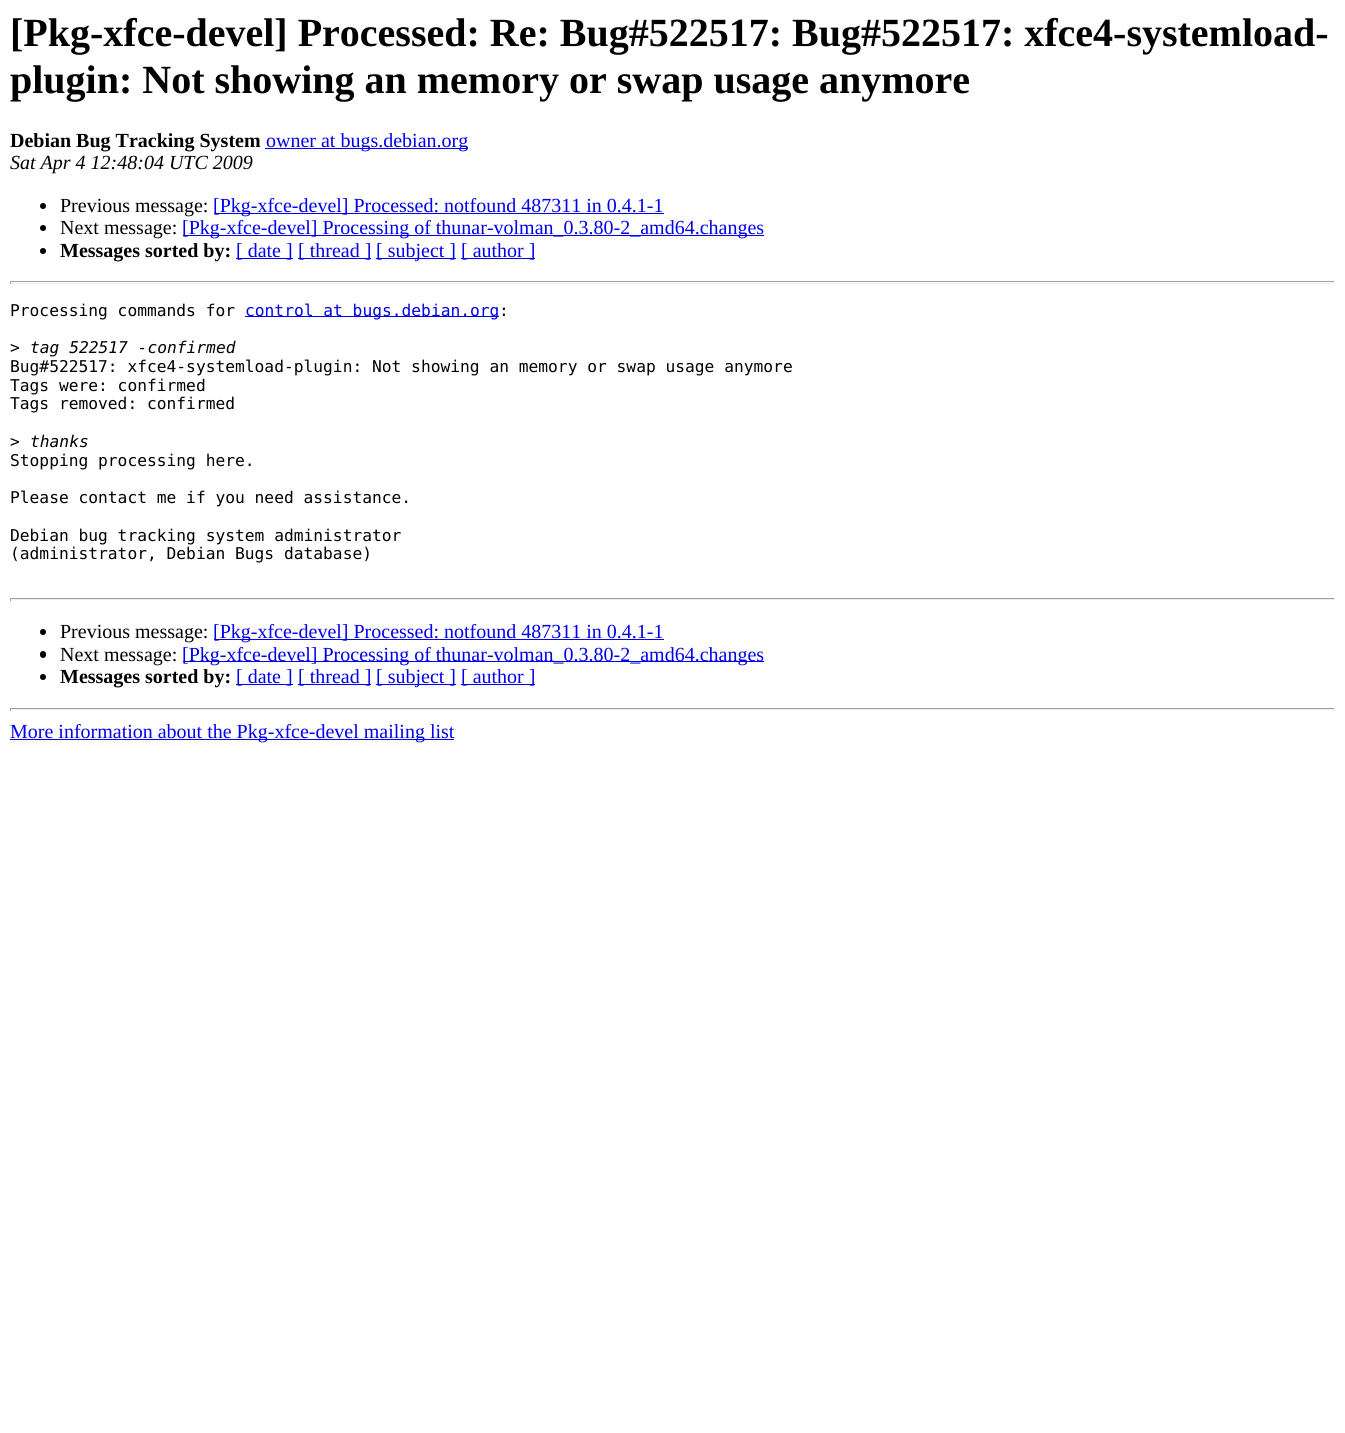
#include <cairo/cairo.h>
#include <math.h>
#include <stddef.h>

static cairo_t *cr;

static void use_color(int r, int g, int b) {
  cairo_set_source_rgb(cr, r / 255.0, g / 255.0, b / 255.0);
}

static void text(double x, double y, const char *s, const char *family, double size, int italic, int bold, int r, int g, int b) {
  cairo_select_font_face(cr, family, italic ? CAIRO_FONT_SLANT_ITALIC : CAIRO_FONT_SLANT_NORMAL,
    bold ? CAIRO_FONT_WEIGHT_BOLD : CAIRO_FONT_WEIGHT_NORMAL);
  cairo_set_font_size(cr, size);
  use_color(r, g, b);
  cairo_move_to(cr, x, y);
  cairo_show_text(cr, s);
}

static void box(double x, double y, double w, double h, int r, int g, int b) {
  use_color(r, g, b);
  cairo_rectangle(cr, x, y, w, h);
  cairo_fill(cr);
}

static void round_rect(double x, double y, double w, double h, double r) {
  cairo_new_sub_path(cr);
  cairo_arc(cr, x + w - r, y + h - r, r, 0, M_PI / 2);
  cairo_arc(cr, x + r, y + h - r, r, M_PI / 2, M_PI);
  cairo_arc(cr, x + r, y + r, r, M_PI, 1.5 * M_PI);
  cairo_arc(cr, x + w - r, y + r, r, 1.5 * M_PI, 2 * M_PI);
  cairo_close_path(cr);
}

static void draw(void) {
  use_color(255, 255, 255);
  cairo_paint(cr);
  box(265, 148, 203, 1, 0, 0, 238);
  use_color(0, 0, 0);
  cairo_arc(cr, 43, 206, 3, 0, 2 * M_PI);
  cairo_fill(cr);
  box(214, 213, 450, 1, 0, 0, 238);
  use_color(0, 0, 0);
  cairo_arc(cr, 43, 228, 3, 0, 2 * M_PI);
  cairo_fill(cr);
  box(183, 235, 581, 1, 0, 0, 238);
  use_color(0, 0, 0);
  cairo_arc(cr, 43, 251, 3, 0, 2 * M_PI);
  cairo_fill(cr);
  box(236, 258, 57, 1, 0, 0, 238);
  box(298, 258, 73, 1, 0, 0, 238);
  box(376, 258, 80, 1, 0, 0, 238);
  box(461, 258, 74, 1, 0, 0, 238);
  box(10, 281, 1325, 1, 159, 159, 159);
  box(1334, 281, 1, 3, 238, 238, 238);
  box(10, 283, 1325, 1, 238, 238, 238);
  box(10, 281, 1, 3, 159, 159, 159);
  box(245, 316, 254, 1, 0, 0, 238);
  box(10, 598, 1325, 1, 159, 159, 159);
  box(1334, 598, 1, 3, 238, 238, 238);
  box(10, 599, 1325, 1, 238, 238, 238);
  box(10, 598, 1, 3, 159, 159, 159);
  use_color(0, 0, 0);
  cairo_arc(cr, 43, 632, 3, 0, 2 * M_PI);
  cairo_fill(cr);
  box(214, 639, 450, 1, 0, 0, 238);
  use_color(0, 0, 0);
  round_rect(40, 651, 6, 7, 3);
  cairo_fill(cr);
  box(183, 661, 581, 1, 0, 0, 238);
  use_color(0, 0, 0);
  cairo_arc(cr, 43, 677, 3, 0, 2 * M_PI);
  cairo_fill(cr);
  box(236, 684, 57, 1, 0, 0, 238);
  box(298, 684, 73, 1, 0, 0, 238);
  box(376, 684, 80, 1, 0, 0, 238);
  box(461, 684, 74, 1, 0, 0, 238);
  box(10, 708, 1325, 1, 159, 159, 159);
  box(1334, 708, 1, 3, 238, 238, 238);
  box(10, 709, 1325, 1, 238, 238, 238);
  box(10, 708, 1, 3, 159, 159, 159);
  box(10, 739, 444, 1, 0, 0, 238);
  text(10, 46, "[Pkg-xfce-devel] Processed: Re: Bug#522517: Bug#522517: xfce4-systemload-", "Liberation Serif", 40, 0, 1, 0, 0, 0);
  text(10, 93, "plugin: Not showing an memory or swap usage anymore", "Liberation Serif", 40, 0, 1, 0, 0, 0);
  text(10, 147, "Debian Bug Tracking System", "Liberation Serif", 20, 0, 1, 0, 0, 0);
  text(266, 147, "owner at bugs.debian.org", "Liberation Serif", 20, 0, 0, 0, 0, 238);
  text(10, 169, "Sat Apr 4 12:48:04 UTC 2009", "Liberation Serif", 20, 1, 0, 0, 0, 0);
  text(60, 212, "Previous message:", "Liberation Serif", 20, 0, 0, 0, 0, 0);
  text(213, 212, "[Pkg-xfce-devel] Processed: notfound 487311 in 0.4.1-1", "Liberation Serif", 20, 0, 0, 0, 0, 238);
  text(60, 234, "Next message:", "Liberation Serif", 20, 0, 0, 0, 0, 0);
  text(182, 234, "[Pkg-xfce-devel] Processing of thunar-volman_0.3.80-2_amd64.changes", "Liberation Serif", 20, 0, 0, 0, 0, 238);
  text(60, 257, "Messages sorted by:", "Liberation Serif", 20, 0, 1, 0, 0, 0);
  text(236, 257, "[ date ]", "Liberation Serif", 20, 0, 0, 0, 0, 238);
  text(298, 257, "[ thread ]", "Liberation Serif", 20, 0, 0, 0, 0, 238);
  text(376, 257, "[ subject ]", "Liberation Serif", 20, 0, 0, 0, 0, 238);
  text(461, 257, "[ author ]", "Liberation Serif", 20, 0, 0, 0, 0, 238);
  text(10, 316, "Processing commands for", "DejaVu Sans Mono", 16.25, 0, 0, 0, 0, 0);
  text(245, 316, "control at bugs.debian.org", "DejaVu Sans Mono", 16.25, 0, 0, 0, 0, 238);
  text(499, 316, ":", "DejaVu Sans Mono", 16.25, 0, 0, 0, 0, 0);
  text(10, 353, ">", "DejaVu Sans Mono", 16.25, 0, 0, 0, 0, 0);
  text(30, 353, "tag 522517 -confirmed", "DejaVu Sans Mono", 16.25, 1, 0, 0, 0, 0);
  text(10, 372, "Bug#522517: xfce4-systemload-plugin: Not showing an memory or swap usage anymore", "DejaVu Sans Mono", 16.25, 0, 0, 0, 0, 0);
  text(10, 391, "Tags were: confirmed", "DejaVu Sans Mono", 16.25, 0, 0, 0, 0, 0);
  text(10, 409, "Tags removed: confirmed", "DejaVu Sans Mono", 16.25, 0, 0, 0, 0, 0);
  text(10, 447, ">", "DejaVu Sans Mono", 16.25, 0, 0, 0, 0, 0);
  text(30, 447, "thanks", "DejaVu Sans Mono", 16.25, 1, 0, 0, 0, 0);
  text(10, 466, "Stopping processing here.", "DejaVu Sans Mono", 16.25, 0, 0, 0, 0, 0);
  text(10, 503, "Please contact me if you need assistance.", "DejaVu Sans Mono", 16.25, 0, 0, 0, 0, 0);
  text(10, 541, "Debian bug tracking system administrator", "DejaVu Sans Mono", 16.25, 0, 0, 0, 0, 0);
  text(10, 559, "(administrator, Debian Bugs database)", "DejaVu Sans Mono", 16.25, 0, 0, 0, 0, 0);
  text(60, 638, "Previous message:", "Liberation Serif", 20, 0, 0, 0, 0, 0);
  text(213, 638, "[Pkg-xfce-devel] Processed: notfound 487311 in 0.4.1-1", "Liberation Serif", 20, 0, 0, 0, 0, 238);
  text(60, 661, "Next message:", "Liberation Serif", 20, 0, 0, 0, 0, 0);
  text(182, 661, "[Pkg-xfce-devel] Processing of thunar-volman_0.3.80-2_amd64.changes", "Liberation Serif", 20, 0, 0, 0, 0, 238);
  text(60, 683, "Messages sorted by:", "Liberation Serif", 20, 0, 1, 0, 0, 0);
  text(236, 683, "[ date ]", "Liberation Serif", 20, 0, 0, 0, 0, 238);
  text(298, 683, "[ thread ]", "Liberation Serif", 20, 0, 0, 0, 0, 238);
  text(376, 683, "[ subject ]", "Liberation Serif", 20, 0, 0, 0, 0, 238);
  text(461, 683, "[ author ]", "Liberation Serif", 20, 0, 0, 0, 0, 238);
  text(10, 738, "More information about the Pkg-xfce-devel mailing list", "Liberation Serif", 20, 0, 0, 0, 0, 238);
}

int main(void) {
  cairo_surface_t *surface = cairo_image_surface_create(CAIRO_FORMAT_RGB24, 1345, 1433);
  cr = cairo_create(surface);
  cairo_font_options_t *options = cairo_font_options_create();
  cairo_font_options_set_hint_metrics(options, CAIRO_HINT_METRICS_OFF);
  cairo_font_options_set_hint_style(options, CAIRO_HINT_STYLE_NONE);
  cairo_set_font_options(cr, options);
  cairo_set_miter_limit(cr, 4);
  draw();
  cairo_surface_write_to_png(surface, "out.png");
  cairo_font_options_destroy(options);
  cairo_destroy(cr);
  cairo_surface_destroy(surface);
  return 0;
}
